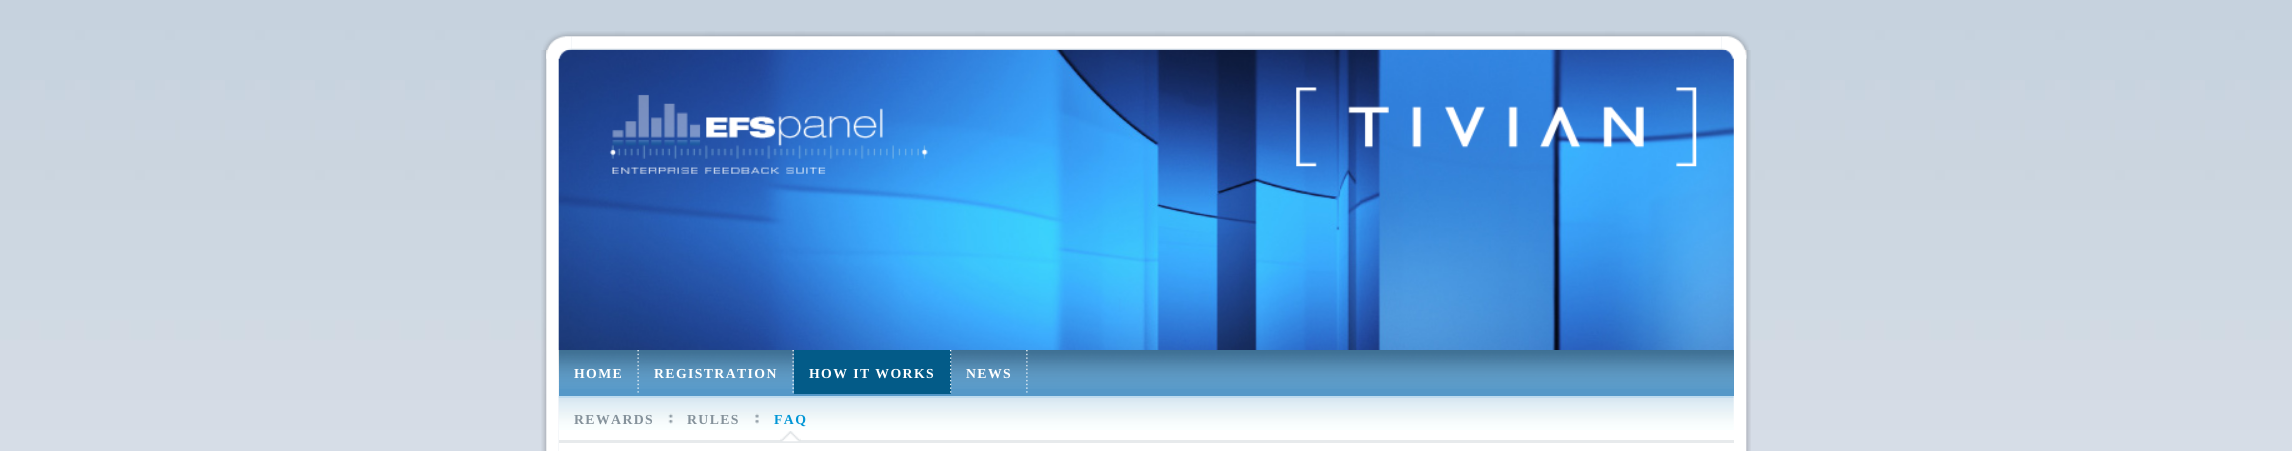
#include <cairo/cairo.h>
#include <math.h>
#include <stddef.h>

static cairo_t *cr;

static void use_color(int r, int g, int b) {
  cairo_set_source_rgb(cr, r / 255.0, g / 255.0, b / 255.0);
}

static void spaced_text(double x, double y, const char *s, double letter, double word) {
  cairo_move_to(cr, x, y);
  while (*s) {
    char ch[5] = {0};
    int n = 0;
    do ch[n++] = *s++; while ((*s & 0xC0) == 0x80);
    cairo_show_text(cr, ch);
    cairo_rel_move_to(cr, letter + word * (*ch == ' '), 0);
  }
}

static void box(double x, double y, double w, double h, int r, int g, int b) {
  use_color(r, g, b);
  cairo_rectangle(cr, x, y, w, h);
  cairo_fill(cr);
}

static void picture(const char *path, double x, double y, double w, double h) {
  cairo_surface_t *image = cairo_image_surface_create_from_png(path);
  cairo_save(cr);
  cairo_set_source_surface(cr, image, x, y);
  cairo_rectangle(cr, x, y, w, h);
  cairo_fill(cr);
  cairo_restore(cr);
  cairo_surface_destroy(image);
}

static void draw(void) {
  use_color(255, 255, 255);
  cairo_paint(cr);
  picture("img_01.png", 0, 0, 2292, 451);
  picture("img_03.png", 571, 31, 1151, 18);
  picture("img_05.png", 541, 50, 18, 401);
  picture("img_06.png", 1733, 50, 18, 401);
  picture("img_07.png", 558, 50, 1176, 300);
  picture("img_02.png", 543, 31, 29, 28);
  picture("img_04.png", 1721, 31, 28, 28);
  picture("img_08.png", 609, 94, 319, 80);
  picture("img_09.png", 1296, 87, 401, 80);
  box(559, 396, 1175, 44, 255, 255, 255);
  box(559, 350, 1175, 46, 85, 152, 200);
  picture("img_10.png", 558, 350, 1176, 39);
  picture("img_11.png", 637, 350, 2, 43);
  picture("img_12.png", 792, 350, 2, 43);
  box(794, 350, 157, 44, 3, 91, 136);
  picture("img_13.png", 950, 350, 2, 43);
  picture("img_14.png", 1026, 350, 2, 43);
  picture("img_15.png", 558, 396, 1176, 34);
  box(559, 440, 1175, 3, 231, 234, 236);
  picture("img_16.png", 668, 413, 5, 11);
  picture("img_17.png", 755, 413, 4, 11);
  picture("img_18.png", 780, 431, 21, 11);
  box(559, 443, 1175, 8, 255, 255, 255);
  cairo_select_font_face(cr, "Liberation Serif", CAIRO_FONT_SLANT_NORMAL, CAIRO_FONT_WEIGHT_BOLD);
  cairo_set_font_size(cr, 13.75);
  spaced_text(574, 378, "HOME", 1.4, 0);
  spaced_text(654, 378, "REGISTRATION", 1.4, 0);
  spaced_text(809, 378, "HOW IT WORKS", 1.4, 0);
  spaced_text(966, 378, "NEWS", 1.4, 0);
  use_color(133, 146, 155);
  spaced_text(574, 424, "REWARDS", 1.4, 0);
  spaced_text(687, 424, "RULES", 1.4, 0);
  use_color(0, 150, 214);
  spaced_text(774, 424, "FAQ", 1.4, 0);
}

int main(void) {
  cairo_surface_t *surface = cairo_image_surface_create(CAIRO_FORMAT_RGB24, 2292, 451);
  cr = cairo_create(surface);
  cairo_font_options_t *options = cairo_font_options_create();
  cairo_font_options_set_hint_metrics(options, CAIRO_HINT_METRICS_OFF);
  cairo_font_options_set_hint_style(options, CAIRO_HINT_STYLE_NONE);
  cairo_set_font_options(cr, options);
  cairo_set_miter_limit(cr, 4);
  draw();
  cairo_surface_write_to_png(surface, "out.png");
  cairo_font_options_destroy(options);
  cairo_destroy(cr);
  cairo_surface_destroy(surface);
  return 0;
}
